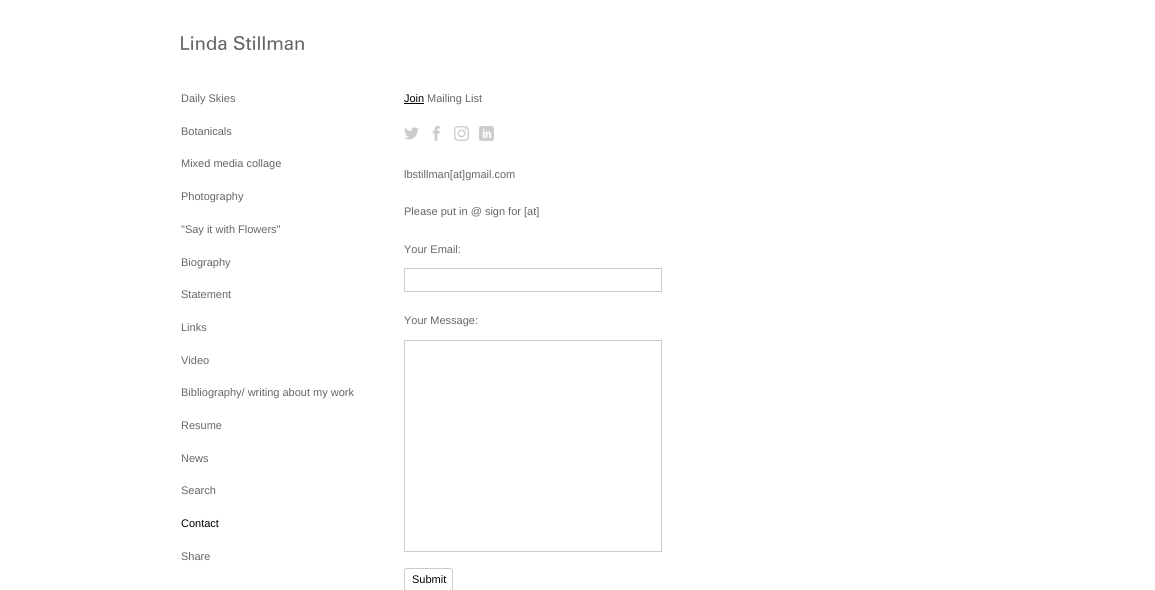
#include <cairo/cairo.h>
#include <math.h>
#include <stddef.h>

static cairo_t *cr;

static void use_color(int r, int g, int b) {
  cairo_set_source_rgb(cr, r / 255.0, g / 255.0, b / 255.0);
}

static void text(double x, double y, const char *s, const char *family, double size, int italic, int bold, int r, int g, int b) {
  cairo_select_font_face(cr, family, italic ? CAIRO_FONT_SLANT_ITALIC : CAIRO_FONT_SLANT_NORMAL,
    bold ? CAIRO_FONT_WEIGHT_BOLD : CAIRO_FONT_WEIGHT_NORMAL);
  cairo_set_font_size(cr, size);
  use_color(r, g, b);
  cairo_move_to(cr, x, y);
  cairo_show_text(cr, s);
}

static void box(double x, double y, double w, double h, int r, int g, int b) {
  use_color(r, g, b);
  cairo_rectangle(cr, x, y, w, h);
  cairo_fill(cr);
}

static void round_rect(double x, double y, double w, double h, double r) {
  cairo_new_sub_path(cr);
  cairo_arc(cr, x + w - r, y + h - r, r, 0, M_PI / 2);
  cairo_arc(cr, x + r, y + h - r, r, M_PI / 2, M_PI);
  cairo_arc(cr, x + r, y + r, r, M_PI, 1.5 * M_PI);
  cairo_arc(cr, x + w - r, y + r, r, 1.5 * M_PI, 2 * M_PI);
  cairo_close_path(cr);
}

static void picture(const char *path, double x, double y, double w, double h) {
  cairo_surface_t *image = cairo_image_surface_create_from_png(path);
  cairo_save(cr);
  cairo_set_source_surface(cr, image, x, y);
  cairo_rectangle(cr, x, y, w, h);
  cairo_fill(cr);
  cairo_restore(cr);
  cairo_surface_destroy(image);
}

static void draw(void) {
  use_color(255, 255, 255);
  cairo_paint(cr);
  picture("img_01.png", 181, 36, 123, 14);
  box(404, 103, 20, 1, 0, 0, 0);
  picture("img_02.png", 404, 127, 15, 13);
  picture("img_03.png", 432, 126, 8, 15);
  picture("img_04.png", 454, 126, 15, 15);
  picture("img_05.png", 479, 126, 15, 15);
  cairo_rectangle(cr, 404.5, 268.5, 257, 23);
  use_color(204, 204, 204);
  cairo_set_line_width(cr, 1);
  cairo_stroke(cr);
  cairo_rectangle(cr, 404.5, 340.5, 257, 211);
  cairo_stroke(cr);
  round_rect(404.5, 568.5, 48, 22, 2.5);
  cairo_stroke(cr);
  text(181, 102, "Daily Skies", "Liberation Sans", 11, 0, 0, 102, 102, 102);
  text(181, 135, "Botanicals", "Liberation Sans", 11, 0, 0, 102, 102, 102);
  text(181, 167, "Mixed media collage", "Liberation Sans", 11, 0, 0, 102, 102, 102);
  text(181, 200, "Photography", "Liberation Sans", 11, 0, 0, 102, 102, 102);
  text(181, 233, "\"Say it with Flowers\"", "Liberation Sans", 11, 0, 0, 102, 102, 102);
  text(181, 266, "Biography", "Liberation Sans", 11, 0, 0, 102, 102, 102);
  text(181, 298, "Statement", "Liberation Sans", 11, 0, 0, 102, 102, 102);
  text(181, 331, "Links", "Liberation Sans", 11, 0, 0, 102, 102, 102);
  text(181, 364, "Video", "Liberation Sans", 11, 0, 0, 102, 102, 102);
  text(181, 396, "Bibliography/ writing about my work", "Liberation Sans", 11, 0, 0, 102, 102, 102);
  text(181, 429, "Resume", "Liberation Sans", 11, 0, 0, 102, 102, 102);
  text(181, 462, "News", "Liberation Sans", 11, 0, 0, 102, 102, 102);
  text(181, 494, "Search", "Liberation Sans", 11, 0, 0, 102, 102, 102);
  text(181, 527, "Contact", "Liberation Sans", 11, 0, 0, 0, 0, 0);
  text(181, 560, "Share", "Liberation Sans", 11, 0, 0, 102, 102, 102);
  text(404, 102, "Join", "Liberation Sans", 11, 0, 0, 0, 0, 0);
  text(427, 102, "Mailing List", "Liberation Sans", 11, 0, 0, 102, 102, 102);
  text(404, 178, "lbstillman[at]gmail.com", "Liberation Sans", 11, 0, 0, 102, 102, 102);
  text(404, 215, "Please put in @ sign for [at]", "Liberation Sans", 11, 0, 0, 102, 102, 102);
  text(404, 253, "Your Email:", "Liberation Sans", 11, 0, 0, 102, 102, 102);
  text(404, 324, "Your Message:", "Liberation Sans", 11, 0, 0, 102, 102, 102);
  text(412, 583, "Submit", "Liberation Sans", 11, 0, 0, 0, 0, 0);
}

int main(void) {
  cairo_surface_t *surface = cairo_image_surface_create(CAIRO_FORMAT_RGB24, 1155, 590);
  cr = cairo_create(surface);
  cairo_font_options_t *options = cairo_font_options_create();
  cairo_font_options_set_hint_metrics(options, CAIRO_HINT_METRICS_OFF);
  cairo_font_options_set_hint_style(options, CAIRO_HINT_STYLE_NONE);
  cairo_set_font_options(cr, options);
  cairo_set_miter_limit(cr, 4);
  draw();
  cairo_surface_write_to_png(surface, "out.png");
  cairo_font_options_destroy(options);
  cairo_destroy(cr);
  cairo_surface_destroy(surface);
  return 0;
}
